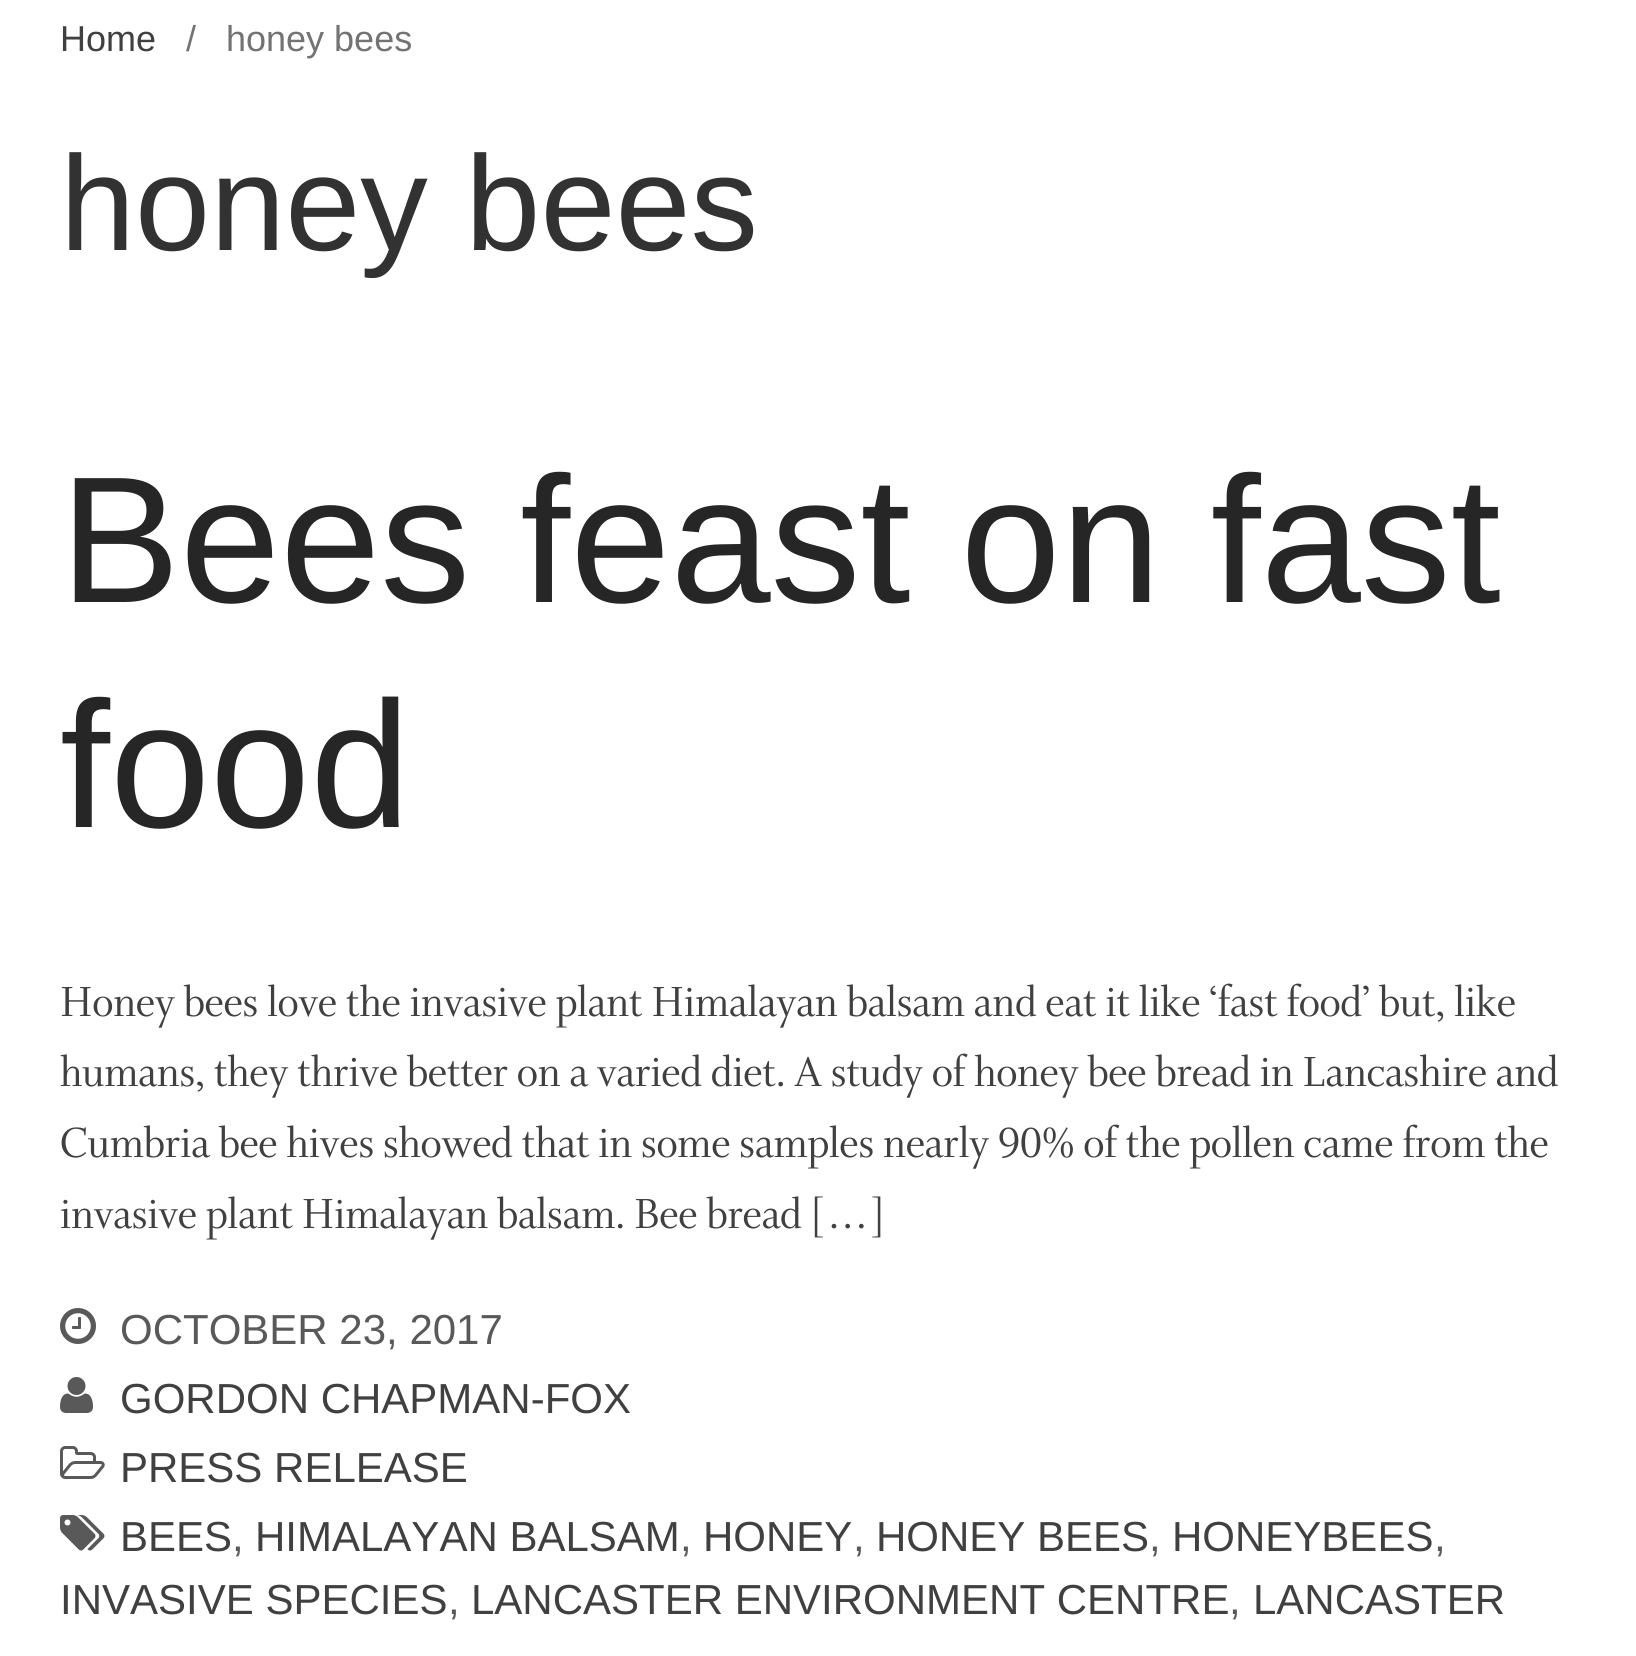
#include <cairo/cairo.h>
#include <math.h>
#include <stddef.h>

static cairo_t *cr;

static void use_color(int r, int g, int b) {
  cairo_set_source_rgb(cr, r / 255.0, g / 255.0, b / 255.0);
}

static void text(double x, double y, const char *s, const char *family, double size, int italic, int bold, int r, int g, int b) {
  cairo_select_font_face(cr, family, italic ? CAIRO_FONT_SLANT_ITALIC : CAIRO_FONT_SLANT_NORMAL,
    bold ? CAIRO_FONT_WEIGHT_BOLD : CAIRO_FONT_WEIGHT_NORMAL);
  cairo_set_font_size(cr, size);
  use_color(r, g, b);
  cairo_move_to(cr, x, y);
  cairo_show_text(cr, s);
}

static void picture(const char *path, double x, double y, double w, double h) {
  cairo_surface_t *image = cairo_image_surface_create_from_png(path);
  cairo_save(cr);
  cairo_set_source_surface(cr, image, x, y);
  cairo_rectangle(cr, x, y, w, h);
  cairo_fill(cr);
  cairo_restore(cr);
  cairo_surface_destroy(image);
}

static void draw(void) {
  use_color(255, 255, 255);
  cairo_paint(cr);
  picture("img_01.png", 60, 1308, 36, 36);
  picture("img_02.png", 60, 1377, 33, 36);
  picture("img_03.png", 60, 1446, 45, 33);
  picture("img_04.png", 60, 1515, 45, 36);
  text(60, 51, "Home", "Liberation Sans", 36, 0, 0, 64, 64, 64);
  text(186, 51, "/", "Liberation Sans", 36, 0, 0, 115, 115, 115);
  text(226, 51, "honey bees", "Liberation Sans", 36, 0, 0, 115, 115, 115);
  text(60, 250, "honey bees", "Liberation Sans", 135, 0, 0, 50, 50, 50);
  text(60, 602, "Bees feast on fast", "Liberation Sans", 180, 0, 0, 38, 38, 38);
  text(60, 827, "food", "Liberation Sans", 180, 0, 0, 38, 38, 38);
  text(60, 1016, "Honey bees love the invasive plant Himalayan balsam and eat it like ‘fast food’ but, like", "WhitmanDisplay", 45, 0, 0, 64, 64, 64);
  text(60, 1086, "humans, they thrive better on a varied diet. A study of honey bee bread in Lancashire and", "WhitmanDisplay", 45, 0, 0, 64, 64, 64);
  text(60, 1157, "Cumbria bee hives showed that in some samples nearly 90% of the pollen came from the", "WhitmanDisplay", 45, 0, 0, 64, 64, 64);
  text(60, 1228, "invasive plant Himalayan balsam. Bee bread […]", "WhitmanDisplay", 45, 0, 0, 64, 64, 64);
  text(120, 1344, "OCTOBER 23, 2017", "Liberation Sans", 42, 0, 0, 89, 89, 89);
  text(120, 1413, "GORDON CHAPMAN-FOX", "Liberation Sans", 42, 0, 0, 64, 64, 64);
  text(120, 1482, "PRESS RELEASE", "Liberation Sans", 42, 0, 0, 64, 64, 64);
  text(120, 1551, "BEES", "Liberation Sans", 42, 0, 0, 64, 64, 64);
  text(232, 1551, ",", "Liberation Sans", 42, 0, 0, 89, 89, 89);
  text(255, 1551, "HIMALAYAN BALSAM", "Liberation Sans", 42, 0, 0, 64, 64, 64);
  text(680, 1551, ",", "Liberation Sans", 42, 0, 0, 89, 89, 89);
  text(703, 1551, "HONEY", "Liberation Sans", 42, 0, 0, 64, 64, 64);
  text(853, 1551, ",", "Liberation Sans", 42, 0, 0, 89, 89, 89);
  text(876, 1551, "HONEY BEES", "Liberation Sans", 42, 0, 0, 64, 64, 64);
  text(1149, 1551, ",", "Liberation Sans", 42, 0, 0, 89, 89, 89);
  text(1172, 1551, "HONEYBEES", "Liberation Sans", 42, 0, 0, 64, 64, 64);
  text(1434, 1551, ",", "Liberation Sans", 42, 0, 0, 89, 89, 89);
  text(60, 1614, "INVASIVE SPECIES", "Liberation Sans", 42, 0, 0, 64, 64, 64);
  text(448, 1614, ",", "Liberation Sans", 42, 0, 0, 89, 89, 89);
  text(471, 1614, "LANCASTER ENVIRONMENT CENTRE", "Liberation Sans", 42, 0, 0, 64, 64, 64);
  text(1229, 1614, ",", "Liberation Sans", 42, 0, 0, 89, 89, 89);
  text(1253, 1614, "LANCASTER", "Liberation Sans", 42, 0, 0, 64, 64, 64);
}

int main(void) {
  cairo_surface_t *surface = cairo_image_surface_create(CAIRO_FORMAT_RGB24, 1636, 1656);
  cr = cairo_create(surface);
  cairo_font_options_t *options = cairo_font_options_create();
  cairo_font_options_set_hint_metrics(options, CAIRO_HINT_METRICS_OFF);
  cairo_font_options_set_hint_style(options, CAIRO_HINT_STYLE_NONE);
  cairo_set_font_options(cr, options);
  cairo_set_miter_limit(cr, 4);
  draw();
  cairo_surface_write_to_png(surface, "out.png");
  cairo_font_options_destroy(options);
  cairo_destroy(cr);
  cairo_surface_destroy(surface);
  return 0;
}
